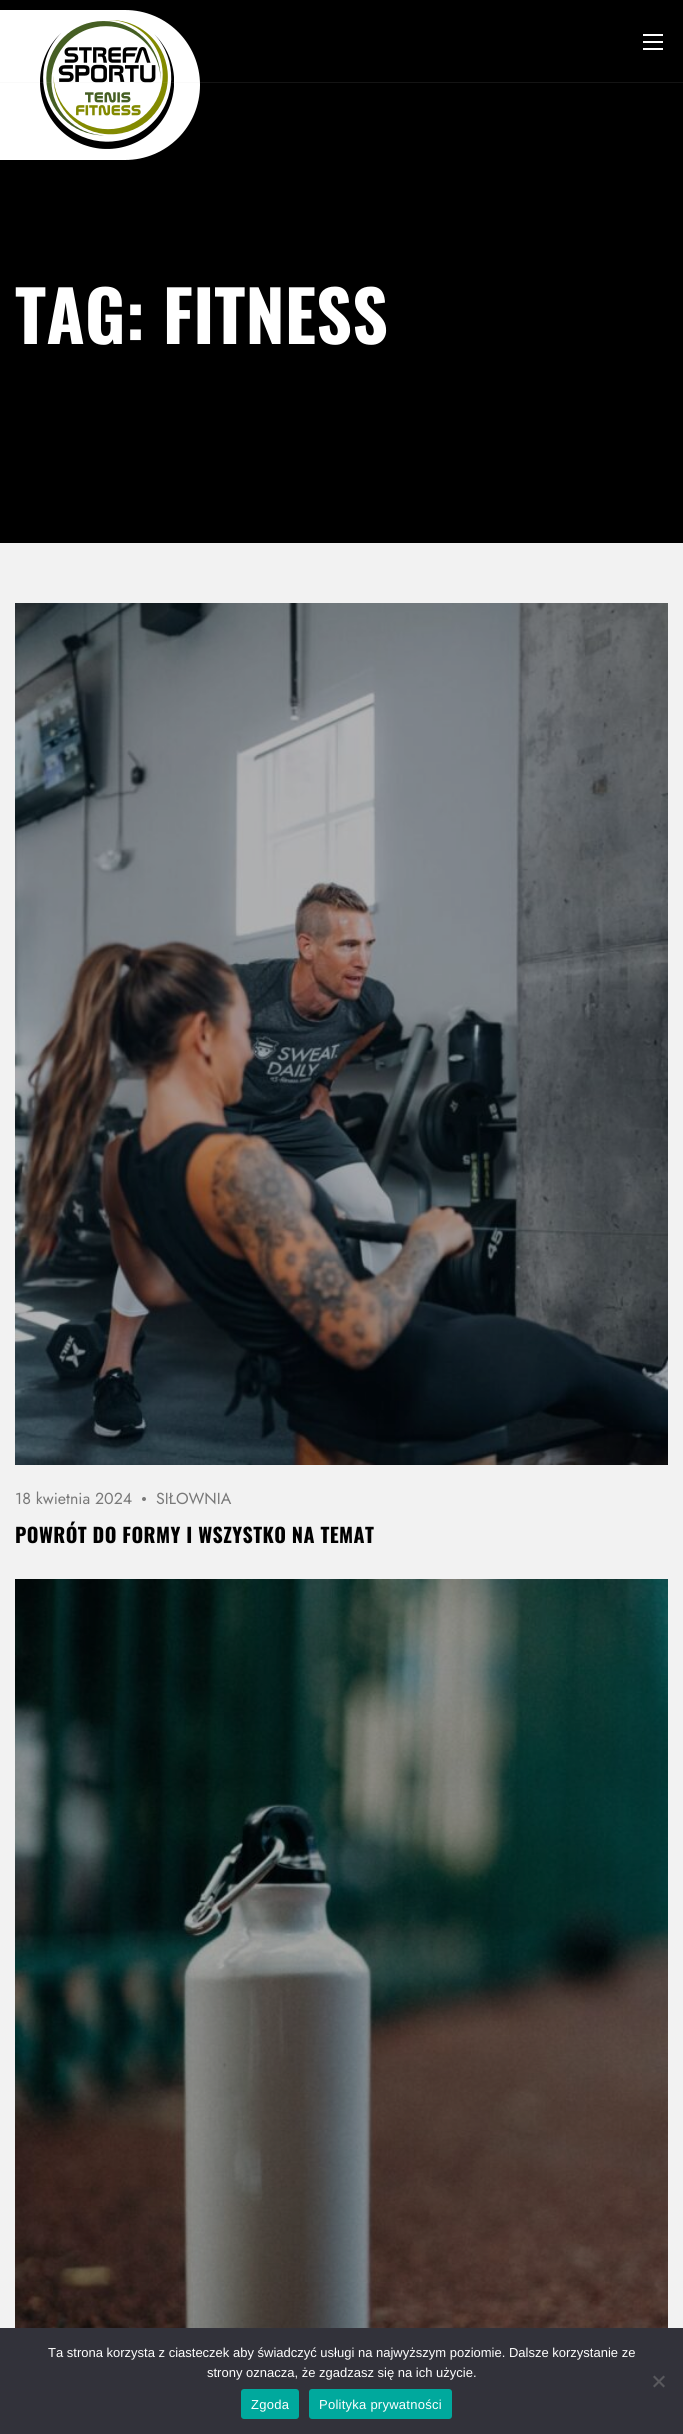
#include <cairo/cairo.h>
#include <math.h>
#include <stddef.h>

static cairo_t *cr;

static void use_color(int r, int g, int b) {
  cairo_set_source_rgb(cr, r / 255.0, g / 255.0, b / 255.0);
}

static void text(double x, double y, const char *s, const char *family, double size, int italic, int bold, int r, int g, int b) {
  cairo_select_font_face(cr, family, italic ? CAIRO_FONT_SLANT_ITALIC : CAIRO_FONT_SLANT_NORMAL,
    bold ? CAIRO_FONT_WEIGHT_BOLD : CAIRO_FONT_WEIGHT_NORMAL);
  cairo_set_font_size(cr, size);
  use_color(r, g, b);
  cairo_move_to(cr, x, y);
  cairo_show_text(cr, s);
}

static void spaced_text(double x, double y, const char *s, double letter, double word) {
  cairo_move_to(cr, x, y);
  while (*s) {
    char ch[5] = {0};
    int n = 0;
    do ch[n++] = *s++; while ((*s & 0xC0) == 0x80);
    cairo_show_text(cr, ch);
    cairo_rel_move_to(cr, letter + word * (*ch == ' '), 0);
  }
}

static void box(double x, double y, double w, double h, int r, int g, int b) {
  use_color(r, g, b);
  cairo_rectangle(cr, x, y, w, h);
  cairo_fill(cr);
}

static void round_rect(double x, double y, double w, double h, double r) {
  cairo_new_sub_path(cr);
  cairo_arc(cr, x + w - r, y + h - r, r, 0, M_PI / 2);
  cairo_arc(cr, x + r, y + h - r, r, M_PI / 2, M_PI);
  cairo_arc(cr, x + r, y + r, r, M_PI, 1.5 * M_PI);
  cairo_arc(cr, x + w - r, y + r, r, 1.5 * M_PI, 2 * M_PI);
  cairo_close_path(cr);
}

static void picture(const char *path, double x, double y, double w, double h) {
  cairo_surface_t *image = cairo_image_surface_create_from_png(path);
  cairo_save(cr);
  cairo_set_source_surface(cr, image, x, y);
  cairo_rectangle(cr, x, y, w, h);
  cairo_fill(cr);
  cairo_restore(cr);
  cairo_surface_destroy(image);
}

static void draw(void) {
  use_color(242, 242, 242);
  cairo_paint(cr);
  box(0, 0, 683, 543, 0, 0, 0);
  use_color(255, 255, 255);
  cairo_new_path(cr);
  cairo_move_to(cr, 0, 10);
  cairo_line_to(cr, 125, 10);
  cairo_curve_to(cr, 166.5, 10, 200, 43.5, 200, 85);
  cairo_curve_to(cr, 200, 126.5, 166.5, 160, 125, 160);
  cairo_line_to(cr, 0, 160);
  cairo_close_path(cr);
  cairo_fill(cr);
  picture("img_01.png", 40, 20, 134, 129);
  box(643, 48, 20, 2, 255, 255, 255);
  box(643, 34, 20, 2, 255, 255, 255);
  box(643, 41, 20, 2, 255, 255, 255);
  cairo_set_source_rgba(cr, 0.8, 0.8, 0.8, 0.1);
  cairo_rectangle(cr, 0, 82, 683, 1);
  cairo_fill(cr);
  picture("img_02.png", 15, 603, 653, 862);
  use_color(121, 121, 121);
  cairo_arc(cr, 144, 1499, 2, 0, 2 * M_PI);
  cairo_fill(cr);
  picture("img_03.png", 15, 1579, 653, 749);
  box(0, 2328, 683, 106, 50, 50, 58);
  use_color(89, 89, 93);
  cairo_new_path(cr);
  cairo_move_to(cr, 663.5, 2375.5);
  cairo_line_to(cr, 665, 2377);
  cairo_line_to(cr, 654.5, 2387.5);
  cairo_line_to(cr, 653, 2386);
  cairo_close_path(cr);
  cairo_fill(cr);
  cairo_new_path(cr);
  cairo_move_to(cr, 653, 2377);
  cairo_line_to(cr, 654.5, 2375.5);
  cairo_line_to(cr, 665, 2386);
  cairo_line_to(cr, 663.5, 2387.5);
  cairo_close_path(cr);
  cairo_fill(cr);
  use_color(0, 169, 157);
  round_rect(241, 2389, 58, 30, 3);
  cairo_fill(cr);
  round_rect(309, 2389, 143, 30, 3);
  cairo_fill(cr);
  text(15, 344, "TAG: FITNESS", "Oswald", 70, 0, 1, 255, 255, 255);
  text(15, 1504, "18 kwietnia 2024", "Jost", 16, 0, 0, 121, 121, 121);
  text(156, 1504, "SIŁOWNIA", "Jost", 16, 0, 0, 121, 121, 121);
  cairo_select_font_face(cr, "Oswald", CAIRO_FONT_SLANT_NORMAL, CAIRO_FONT_WEIGHT_BOLD);
  cairo_set_font_size(cr, 20);
  use_color(0, 0, 0);
  spaced_text(15, 1543, "POWRÓT DO FORMY I WSZYSTKO NA TEMAT", 0.4, 0);
  text(48, 2357, "Ta strona korzysta z ciasteczek aby świadczyć usługi na najwyższym poziomie. Dalsze korzystanie ze", "Liberation Sans", 13, 0, 0, 255, 255, 255);
  text(207, 2377, "strony oznacza, że zgadzasz się na ich użycie.", "Liberation Sans", 13, 0, 0, 255, 255, 255);
  spaced_text(251, 2409, "Zgoda", 0.25, 0);
  spaced_text(319, 2409, "Polityka prywatności", 0.25, 0);
}

int main(void) {
  cairo_surface_t *surface = cairo_image_surface_create(CAIRO_FORMAT_RGB24, 683, 2434);
  cr = cairo_create(surface);
  cairo_font_options_t *options = cairo_font_options_create();
  cairo_font_options_set_hint_metrics(options, CAIRO_HINT_METRICS_OFF);
  cairo_font_options_set_hint_style(options, CAIRO_HINT_STYLE_NONE);
  cairo_set_font_options(cr, options);
  cairo_set_miter_limit(cr, 4);
  draw();
  cairo_surface_write_to_png(surface, "out.png");
  cairo_font_options_destroy(options);
  cairo_destroy(cr);
  cairo_surface_destroy(surface);
  return 0;
}
